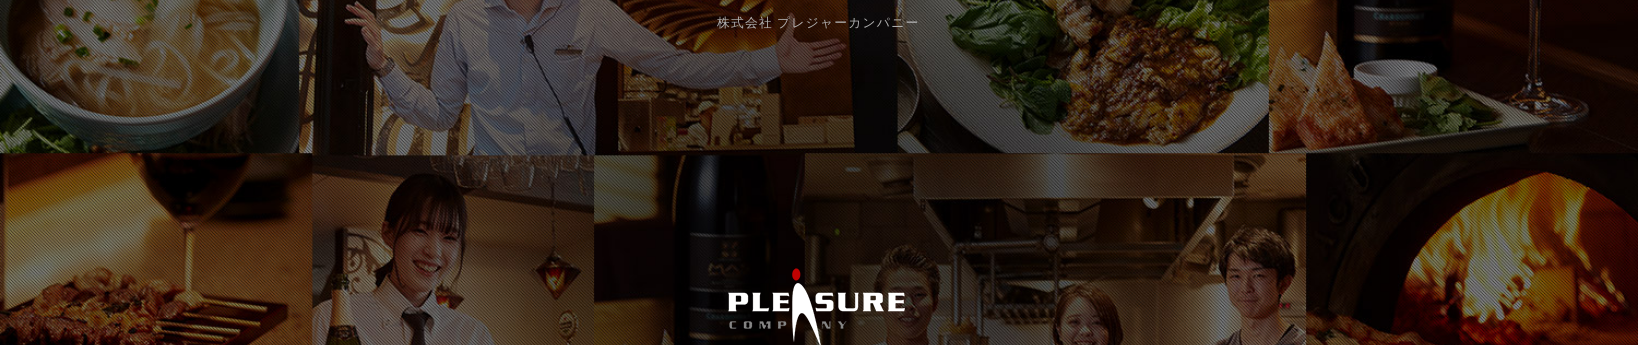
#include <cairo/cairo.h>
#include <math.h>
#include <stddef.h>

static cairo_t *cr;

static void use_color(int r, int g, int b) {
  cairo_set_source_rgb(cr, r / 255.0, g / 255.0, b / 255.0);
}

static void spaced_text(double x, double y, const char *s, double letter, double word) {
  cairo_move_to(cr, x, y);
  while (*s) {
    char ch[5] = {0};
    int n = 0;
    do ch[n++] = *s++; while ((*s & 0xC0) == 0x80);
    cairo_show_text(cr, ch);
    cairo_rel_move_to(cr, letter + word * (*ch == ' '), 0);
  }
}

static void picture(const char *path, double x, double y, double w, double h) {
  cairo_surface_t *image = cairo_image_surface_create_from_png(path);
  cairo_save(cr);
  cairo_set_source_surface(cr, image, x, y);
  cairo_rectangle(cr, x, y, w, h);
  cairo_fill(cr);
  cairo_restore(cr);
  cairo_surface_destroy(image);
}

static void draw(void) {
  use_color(255, 255, 255);
  cairo_paint(cr);
  picture("img_01.png", 0, 0, 1638, 345);
  picture("img_02.png", 728, 268, 177, 77);
  cairo_select_font_face(cr, "WenQuanYi Zen Hei Medium", CAIRO_FONT_SLANT_NORMAL, CAIRO_FONT_WEIGHT_NORMAL);
  cairo_set_font_size(cr, 12.75);
  use_color(175, 175, 175);
  spaced_text(717, 27, "株式会社 プレジャーカンパニー", 1.25, -1);
}

int main(void) {
  cairo_surface_t *surface = cairo_image_surface_create(CAIRO_FORMAT_RGB24, 1638, 345);
  cr = cairo_create(surface);
  cairo_font_options_t *options = cairo_font_options_create();
  cairo_font_options_set_hint_metrics(options, CAIRO_HINT_METRICS_OFF);
  cairo_font_options_set_hint_style(options, CAIRO_HINT_STYLE_NONE);
  cairo_set_font_options(cr, options);
  cairo_set_miter_limit(cr, 4);
  draw();
  cairo_surface_write_to_png(surface, "out.png");
  cairo_font_options_destroy(options);
  cairo_destroy(cr);
  cairo_surface_destroy(surface);
  return 0;
}
